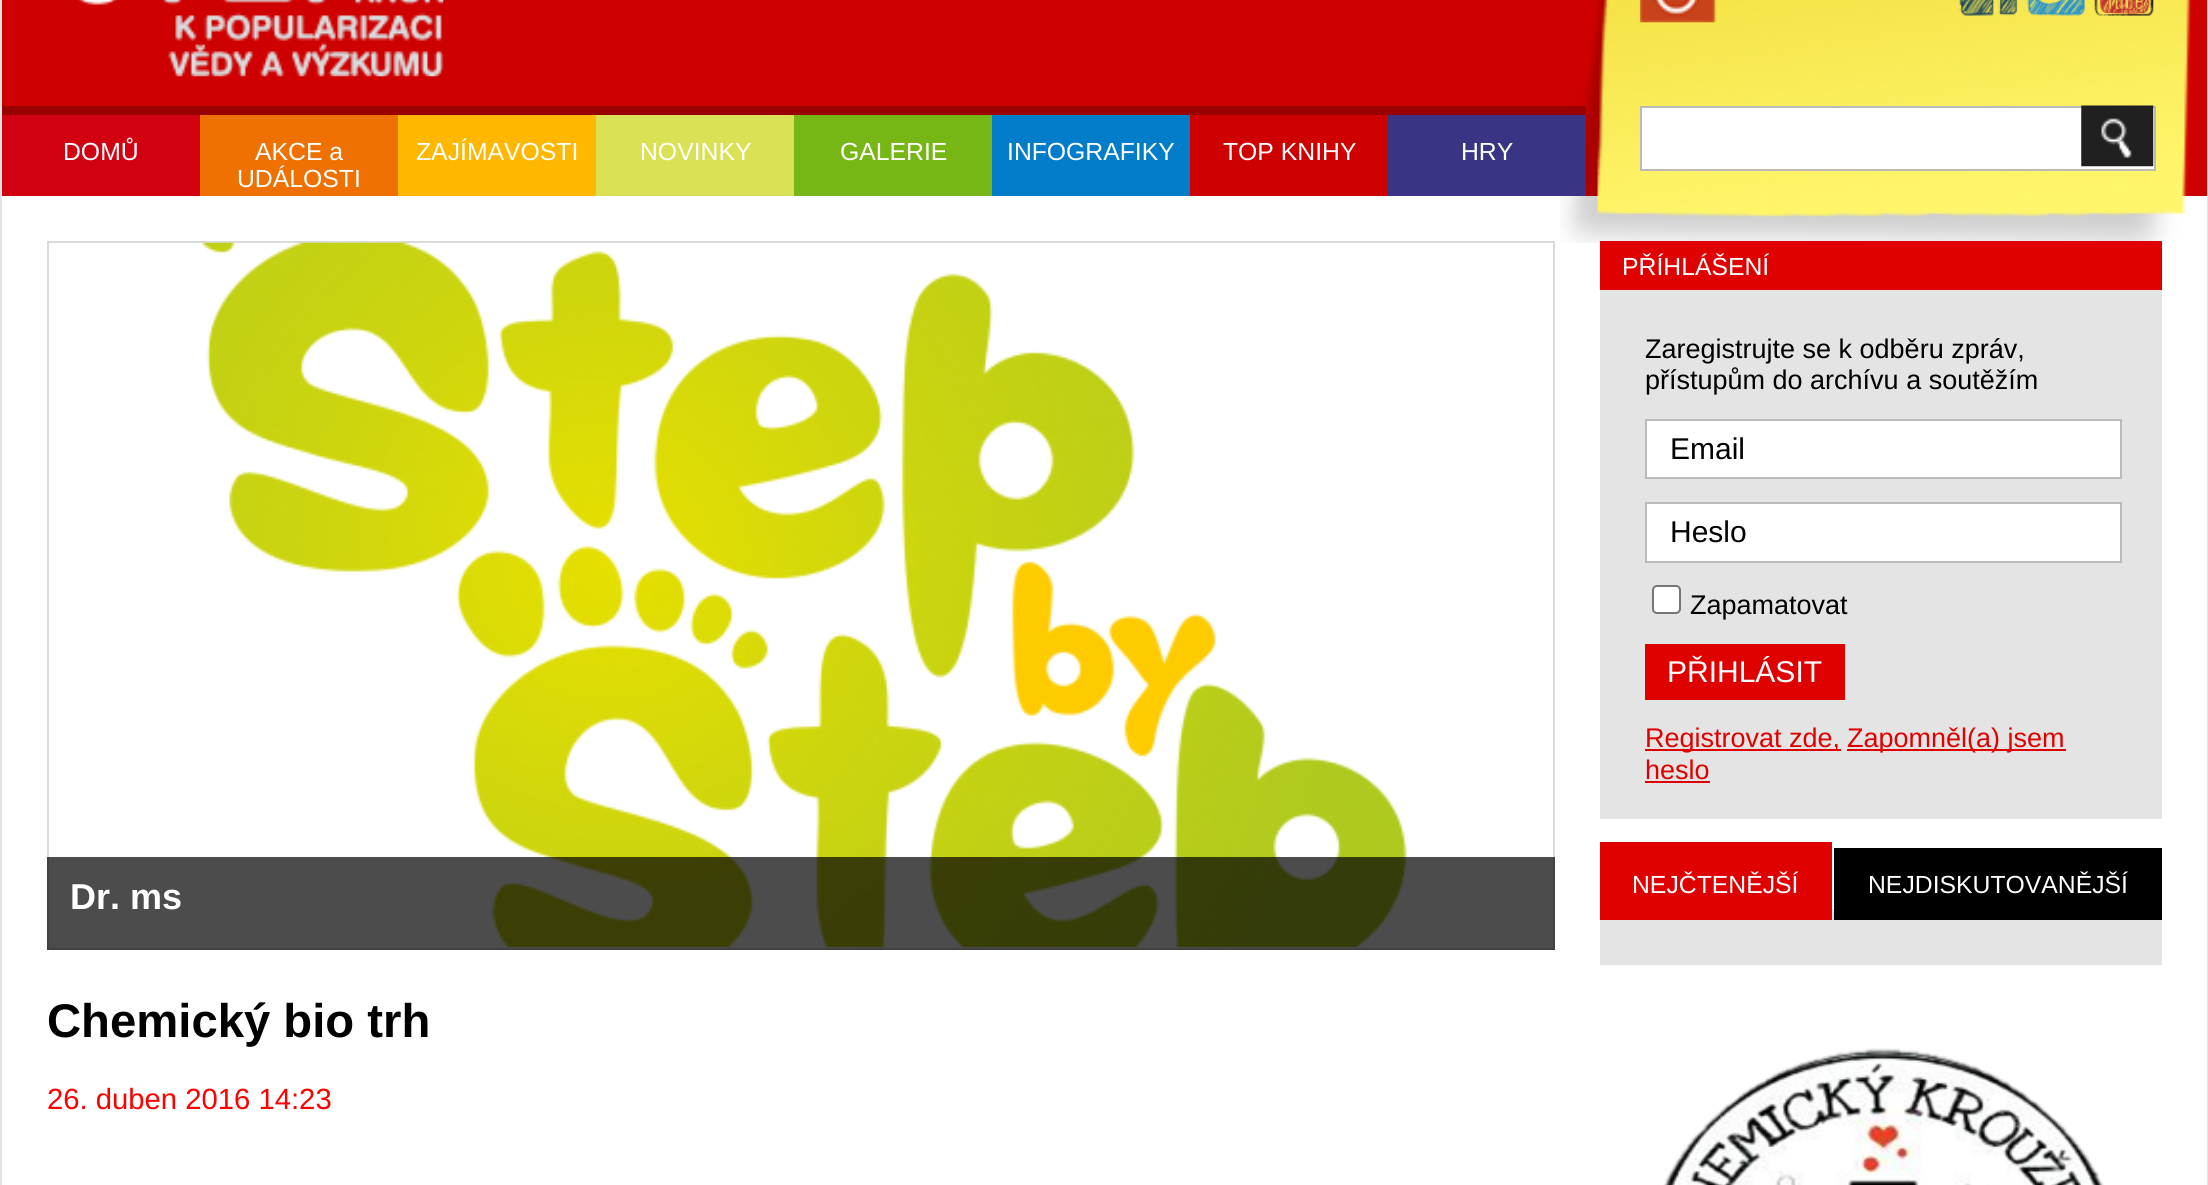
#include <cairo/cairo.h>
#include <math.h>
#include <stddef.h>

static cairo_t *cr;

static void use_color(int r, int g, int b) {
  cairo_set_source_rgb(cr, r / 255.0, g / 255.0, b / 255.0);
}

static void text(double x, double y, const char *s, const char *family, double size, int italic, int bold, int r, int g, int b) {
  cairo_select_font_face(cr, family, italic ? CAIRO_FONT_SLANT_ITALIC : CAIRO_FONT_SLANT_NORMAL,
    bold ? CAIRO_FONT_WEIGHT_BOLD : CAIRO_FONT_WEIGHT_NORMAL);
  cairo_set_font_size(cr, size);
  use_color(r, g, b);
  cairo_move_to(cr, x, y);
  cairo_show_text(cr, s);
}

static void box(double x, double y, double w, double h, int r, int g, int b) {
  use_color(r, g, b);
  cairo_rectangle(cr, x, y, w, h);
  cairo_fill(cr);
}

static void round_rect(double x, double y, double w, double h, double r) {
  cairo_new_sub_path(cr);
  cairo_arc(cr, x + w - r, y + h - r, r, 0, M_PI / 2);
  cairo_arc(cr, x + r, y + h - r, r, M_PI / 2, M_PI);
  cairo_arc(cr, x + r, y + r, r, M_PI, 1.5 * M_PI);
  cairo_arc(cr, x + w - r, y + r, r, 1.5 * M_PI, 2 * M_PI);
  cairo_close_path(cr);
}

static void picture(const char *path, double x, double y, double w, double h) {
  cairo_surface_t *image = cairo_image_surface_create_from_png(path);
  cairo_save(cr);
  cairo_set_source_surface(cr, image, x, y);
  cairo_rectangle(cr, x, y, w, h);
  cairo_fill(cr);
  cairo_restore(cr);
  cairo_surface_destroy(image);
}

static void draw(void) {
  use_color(227, 227, 227);
  cairo_paint(cr);
  box(2, 196, 2205, 989, 255, 255, 255);
  box(2, 0, 2205, 196, 207, 0, 0);
  picture("img_01.png", 78, 0, 366, 77);
  picture("img_02.png", 1560, 0, 632, 243);
  picture("img_03.png", 1959, 0, 59, 16);
  picture("img_04.png", 2027, 0, 58, 16);
  picture("img_05.png", 2094, 0, 60, 16);
  use_color(255, 255, 255);
  cairo_rectangle(cr, 1641, 107, 514, 63);
  cairo_fill_preserve(cr);
  use_color(186, 186, 186);
  cairo_stroke(cr);
  picture("img_06.png", 2081, 105, 73, 62);
  picture("img_07.png", 1640, 0, 77, 23);
  box(2, 115, 198, 81, 210, 1, 18);
  box(2, 106, 1584, 9, 153, 0, 0);
  box(200, 115, 198, 81, 238, 113, 1);
  box(398, 115, 198, 81, 255, 183, 0);
  box(596, 115, 198, 81, 219, 225, 84);
  box(794, 115, 198, 81, 118, 183, 21);
  box(992, 115, 198, 81, 1, 125, 201);
  box(1388, 115, 198, 81, 57, 52, 132);
  box(1600, 290, 562, 529, 228, 228, 228);
  box(1600, 241, 562, 49, 223, 0, 0);
  use_color(255, 255, 255);
  cairo_rectangle(cr, 1646, 420, 475, 58);
  cairo_fill_preserve(cr);
  use_color(186, 186, 186);
  cairo_stroke(cr);
  use_color(255, 255, 255);
  cairo_rectangle(cr, 1646, 503, 475, 59);
  cairo_fill_preserve(cr);
  use_color(186, 186, 186);
  cairo_stroke(cr);
  use_color(255, 255, 255);
  round_rect(1653, 586, 27, 27, 4);
  cairo_fill_preserve(cr);
  use_color(118, 118, 118);
  cairo_stroke(cr);
  box(1645, 644, 200, 56, 223, 0, 0);
  box(1645, 749, 196, 2, 223, 0, 0);
  box(1847, 749, 219, 2, 223, 0, 0);
  box(1645, 781, 65, 2, 223, 0, 0);
  box(1600, 909, 562, 56, 228, 228, 228);
  box(1600, 842, 232, 78, 223, 0, 0);
  box(1834, 848, 328, 72, 0, 0, 0);
  picture("img_08.png", 1663, 1048, 441, 137);
  cairo_rectangle(cr, 48, 242, 1506, 707);
  use_color(217, 218, 219);
  cairo_stroke(cr);
  picture("img_09.png", 202, 242, 1205, 705);
  cairo_set_source_rgba(cr, 0, 0, 0, 0.7);
  cairo_rectangle(cr, 47, 857, 1508, 93);
  cairo_fill(cr);
  text(63, 160, "DOMŮ", "Liberation Sans", 24.75, 0, 0, 255, 255, 255);
  text(255, 160, "AKCE a", "Liberation Sans", 24.75, 0, 0, 255, 255, 255);
  text(237, 187, "UDÁLOSTI", "Liberation Sans", 24.75, 0, 0, 255, 255, 255);
  text(416, 160, "ZAJÍMAVOSTI", "Liberation Sans", 24.75, 0, 0, 255, 255, 255);
  text(640, 160, "NOVINKY", "Liberation Sans", 24.75, 0, 0, 255, 255, 255);
  text(840, 160, "GALERIE", "Liberation Sans", 24.75, 0, 0, 255, 255, 255);
  text(1007, 160, "INFOGRAFIKY", "Liberation Sans", 24.75, 0, 0, 255, 255, 255);
  text(1223, 160, "TOP KNIHY", "Liberation Sans", 24.75, 0, 0, 255, 255, 255);
  text(1461, 160, "HRY", "Liberation Sans", 24.75, 0, 0, 255, 255, 255);
  text(1622, 275, "PŘÍHLÁŠENÍ", "Liberation Sans", 24.75, 0, 0, 255, 255, 255);
  text(1645, 358, "Zaregistrujte se k odběru zpráv,", "Liberation Sans", 27, 0, 0, 0, 0, 0);
  text(1645, 389, "přístupům do archívu a soutěžím", "Liberation Sans", 27, 0, 0, 0, 0, 0);
  text(1670, 459, "Email", "Liberation Sans", 30, 0, 0, 0, 0, 0);
  text(1670, 542, "Heslo", "Liberation Sans", 30, 0, 0, 0, 0, 0);
  text(1690, 614, "Zapamatovat", "Liberation Sans", 27, 0, 0, 0, 0, 0);
  text(1667, 682, "PŘIHLÁSIT", "Liberation Sans", 30, 0, 0, 255, 255, 255);
  text(1645, 747, "Registrovat zde,", "Liberation Sans", 27, 0, 0, 223, 0, 0);
  text(1847, 747, "Zapomněl(a) jsem", "Liberation Sans", 27, 0, 0, 223, 0, 0);
  text(1645, 779, "heslo", "Liberation Sans", 27, 0, 0, 223, 0, 0);
  text(1632, 893, "NEJČTENĚJŠÍ", "Liberation Sans", 24.75, 0, 0, 255, 255, 255);
  text(1868, 893, "NEJDISKUTOVANĚJŠÍ", "Liberation Sans", 24.75, 0, 0, 255, 255, 255);
  text(70, 909, "Dr. ms", "Liberation Sans", 36, 0, 1, 255, 255, 255);
  text(47, 1037, "Chemický bio trh", "Liberation Sans", 47.25, 0, 1, 0, 0, 0);
  text(47, 1109, "26. duben 2016 14:23", "Liberation Sans", 29.25, 0, 0, 254, 0, 0);
}

int main(void) {
  cairo_surface_t *surface = cairo_image_surface_create(CAIRO_FORMAT_RGB24, 2208, 1185);
  cr = cairo_create(surface);
  cairo_font_options_t *options = cairo_font_options_create();
  cairo_font_options_set_hint_metrics(options, CAIRO_HINT_METRICS_OFF);
  cairo_font_options_set_hint_style(options, CAIRO_HINT_STYLE_NONE);
  cairo_set_font_options(cr, options);
  cairo_set_miter_limit(cr, 4);
  draw();
  cairo_surface_write_to_png(surface, "out.png");
  cairo_font_options_destroy(options);
  cairo_destroy(cr);
  cairo_surface_destroy(surface);
  return 0;
}
